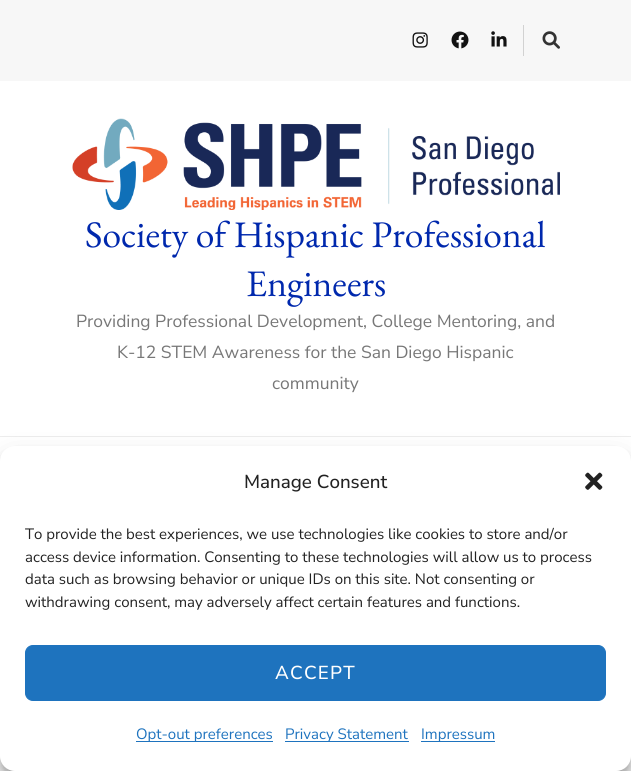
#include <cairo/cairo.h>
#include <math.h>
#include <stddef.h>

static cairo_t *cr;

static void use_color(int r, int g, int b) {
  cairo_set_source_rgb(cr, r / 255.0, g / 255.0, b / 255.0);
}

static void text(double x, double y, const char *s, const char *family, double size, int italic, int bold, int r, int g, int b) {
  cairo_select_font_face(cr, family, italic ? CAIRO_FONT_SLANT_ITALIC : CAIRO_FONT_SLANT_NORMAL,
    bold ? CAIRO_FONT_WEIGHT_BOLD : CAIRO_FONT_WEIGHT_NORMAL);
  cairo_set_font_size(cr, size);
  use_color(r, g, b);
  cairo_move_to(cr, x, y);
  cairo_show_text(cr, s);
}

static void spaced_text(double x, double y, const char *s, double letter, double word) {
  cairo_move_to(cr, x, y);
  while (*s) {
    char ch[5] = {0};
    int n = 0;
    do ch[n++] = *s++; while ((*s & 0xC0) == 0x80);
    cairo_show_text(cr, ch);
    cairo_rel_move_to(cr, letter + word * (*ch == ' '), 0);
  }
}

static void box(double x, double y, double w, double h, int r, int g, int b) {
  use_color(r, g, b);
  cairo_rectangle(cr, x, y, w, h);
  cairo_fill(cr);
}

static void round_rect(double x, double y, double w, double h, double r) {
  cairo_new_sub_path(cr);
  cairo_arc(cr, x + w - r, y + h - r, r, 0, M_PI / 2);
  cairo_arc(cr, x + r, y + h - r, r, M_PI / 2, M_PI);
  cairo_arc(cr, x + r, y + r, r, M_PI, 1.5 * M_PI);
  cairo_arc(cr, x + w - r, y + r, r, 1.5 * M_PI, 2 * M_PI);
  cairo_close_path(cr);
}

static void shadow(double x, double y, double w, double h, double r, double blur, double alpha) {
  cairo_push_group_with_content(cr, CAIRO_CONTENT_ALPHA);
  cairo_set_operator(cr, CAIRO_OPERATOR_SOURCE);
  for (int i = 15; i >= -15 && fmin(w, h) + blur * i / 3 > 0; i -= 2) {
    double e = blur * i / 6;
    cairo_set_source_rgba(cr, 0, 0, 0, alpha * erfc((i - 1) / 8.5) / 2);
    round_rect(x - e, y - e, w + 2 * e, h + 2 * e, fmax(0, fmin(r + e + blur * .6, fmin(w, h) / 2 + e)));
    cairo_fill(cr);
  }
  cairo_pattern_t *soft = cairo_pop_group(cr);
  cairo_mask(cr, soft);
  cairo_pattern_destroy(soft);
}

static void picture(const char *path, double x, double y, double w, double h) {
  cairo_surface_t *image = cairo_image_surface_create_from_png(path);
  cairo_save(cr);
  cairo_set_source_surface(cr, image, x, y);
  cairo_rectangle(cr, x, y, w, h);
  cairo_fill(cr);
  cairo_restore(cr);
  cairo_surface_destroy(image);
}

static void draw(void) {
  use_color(255, 255, 255);
  cairo_paint(cr);
  box(0, 0, 631, 81, 247, 247, 247);
  picture("img_01.png", 412, 32, 16, 16);
  picture("img_02.png", 451, 31, 18, 18);
  picture("img_03.png", 491, 31, 16, 16);
  box(523, 25, 1, 31, 210, 210, 210);
  picture("img_04.png", 542, 31, 18, 18);
  picture("img_05.png", 72, 118, 488, 92);
  box(0, 436, 631, 1, 237, 237, 237);
  use_color(0, 0, 0);
  shadow(0, 454, 631, 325, 15, 4, 0.23);
  shadow(0, 459, 631, 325, 15, 12.5, 0.19);
  use_color(255, 255, 255);
  round_rect(0, 446, 631, 325, 15);
  cairo_fill(cr);
  picture("img_06.png", 585, 472, 18, 18);
  use_color(30, 115, 190);
  round_rect(25.5, 645.5, 580, 55, 7.5);
  cairo_fill_preserve(cr);
  cairo_set_line_width(cr, 1);
  cairo_stroke(cr);
  box(136, 741, 137, 1, 30, 115, 190);
  box(285, 741, 124, 1, 30, 115, 190);
  box(421, 741, 74, 1, 30, 115, 190);
  text(85, 247, "Society of Hispanic Professional", "EB Garamond", 37.5, 0, 0, 0, 40, 173);
  text(246, 296, "Engineers", "EB Garamond", 37.5, 0, 0, 0, 40, 173);
  text(76, 327, "Providing Professional Development, College Mentoring, and", "Nunito Sans", 17.5, 0, 0, 119, 119, 119);
  text(117, 358, "K-12 STEM Awareness for the San Diego Hispanic", "Nunito Sans", 17.5, 0, 0, 119, 119, 119);
  text(272, 389, "community", "Nunito Sans", 17.5, 0, 0, 119, 119, 119);
  text(244, 488, "Manage Consent", "Nunito Sans Medium", 18.75, 0, 0, 34, 34, 34);
  text(25, 539, "To provide the best experiences, we use technologies like cookies to store and/or", "Nunito Sans", 15, 0, 0, 34, 34, 34);
  text(25, 562, "access device information. Consenting to these technologies will allow us to process", "Nunito Sans", 15, 0, 0, 34, 34, 34);
  text(25, 584, "data such as browsing behavior or unique IDs on this site. Not consenting or", "Nunito Sans", 15, 0, 0, 34, 34, 34);
  text(25, 607, "withdrawing consent, may adversely affect certain features and functions.", "Nunito Sans", 15, 0, 0, 34, 34, 34);
  cairo_select_font_face(cr, "Nunito Sans Medium", CAIRO_FONT_SLANT_NORMAL, CAIRO_FONT_WEIGHT_NORMAL);
  cairo_set_font_size(cr, 18.75);
  use_color(255, 255, 255);
  spaced_text(275, 679, "ACCEPT", 1.25, 0);
  text(136, 739, "Opt-out preferences", "Nunito Sans", 15, 0, 0, 30, 115, 190);
  text(285, 739, "Privacy Statement", "Nunito Sans", 15, 0, 0, 30, 115, 190);
  text(421, 739, "Impressum", "Nunito Sans", 15, 0, 0, 30, 115, 190);
}

int main(void) {
  cairo_surface_t *surface = cairo_image_surface_create(CAIRO_FORMAT_RGB24, 631, 771);
  cr = cairo_create(surface);
  cairo_font_options_t *options = cairo_font_options_create();
  cairo_font_options_set_hint_metrics(options, CAIRO_HINT_METRICS_OFF);
  cairo_font_options_set_hint_style(options, CAIRO_HINT_STYLE_NONE);
  cairo_set_font_options(cr, options);
  cairo_set_miter_limit(cr, 4);
  draw();
  cairo_surface_write_to_png(surface, "out.png");
  cairo_font_options_destroy(options);
  cairo_destroy(cr);
  cairo_surface_destroy(surface);
  return 0;
}
